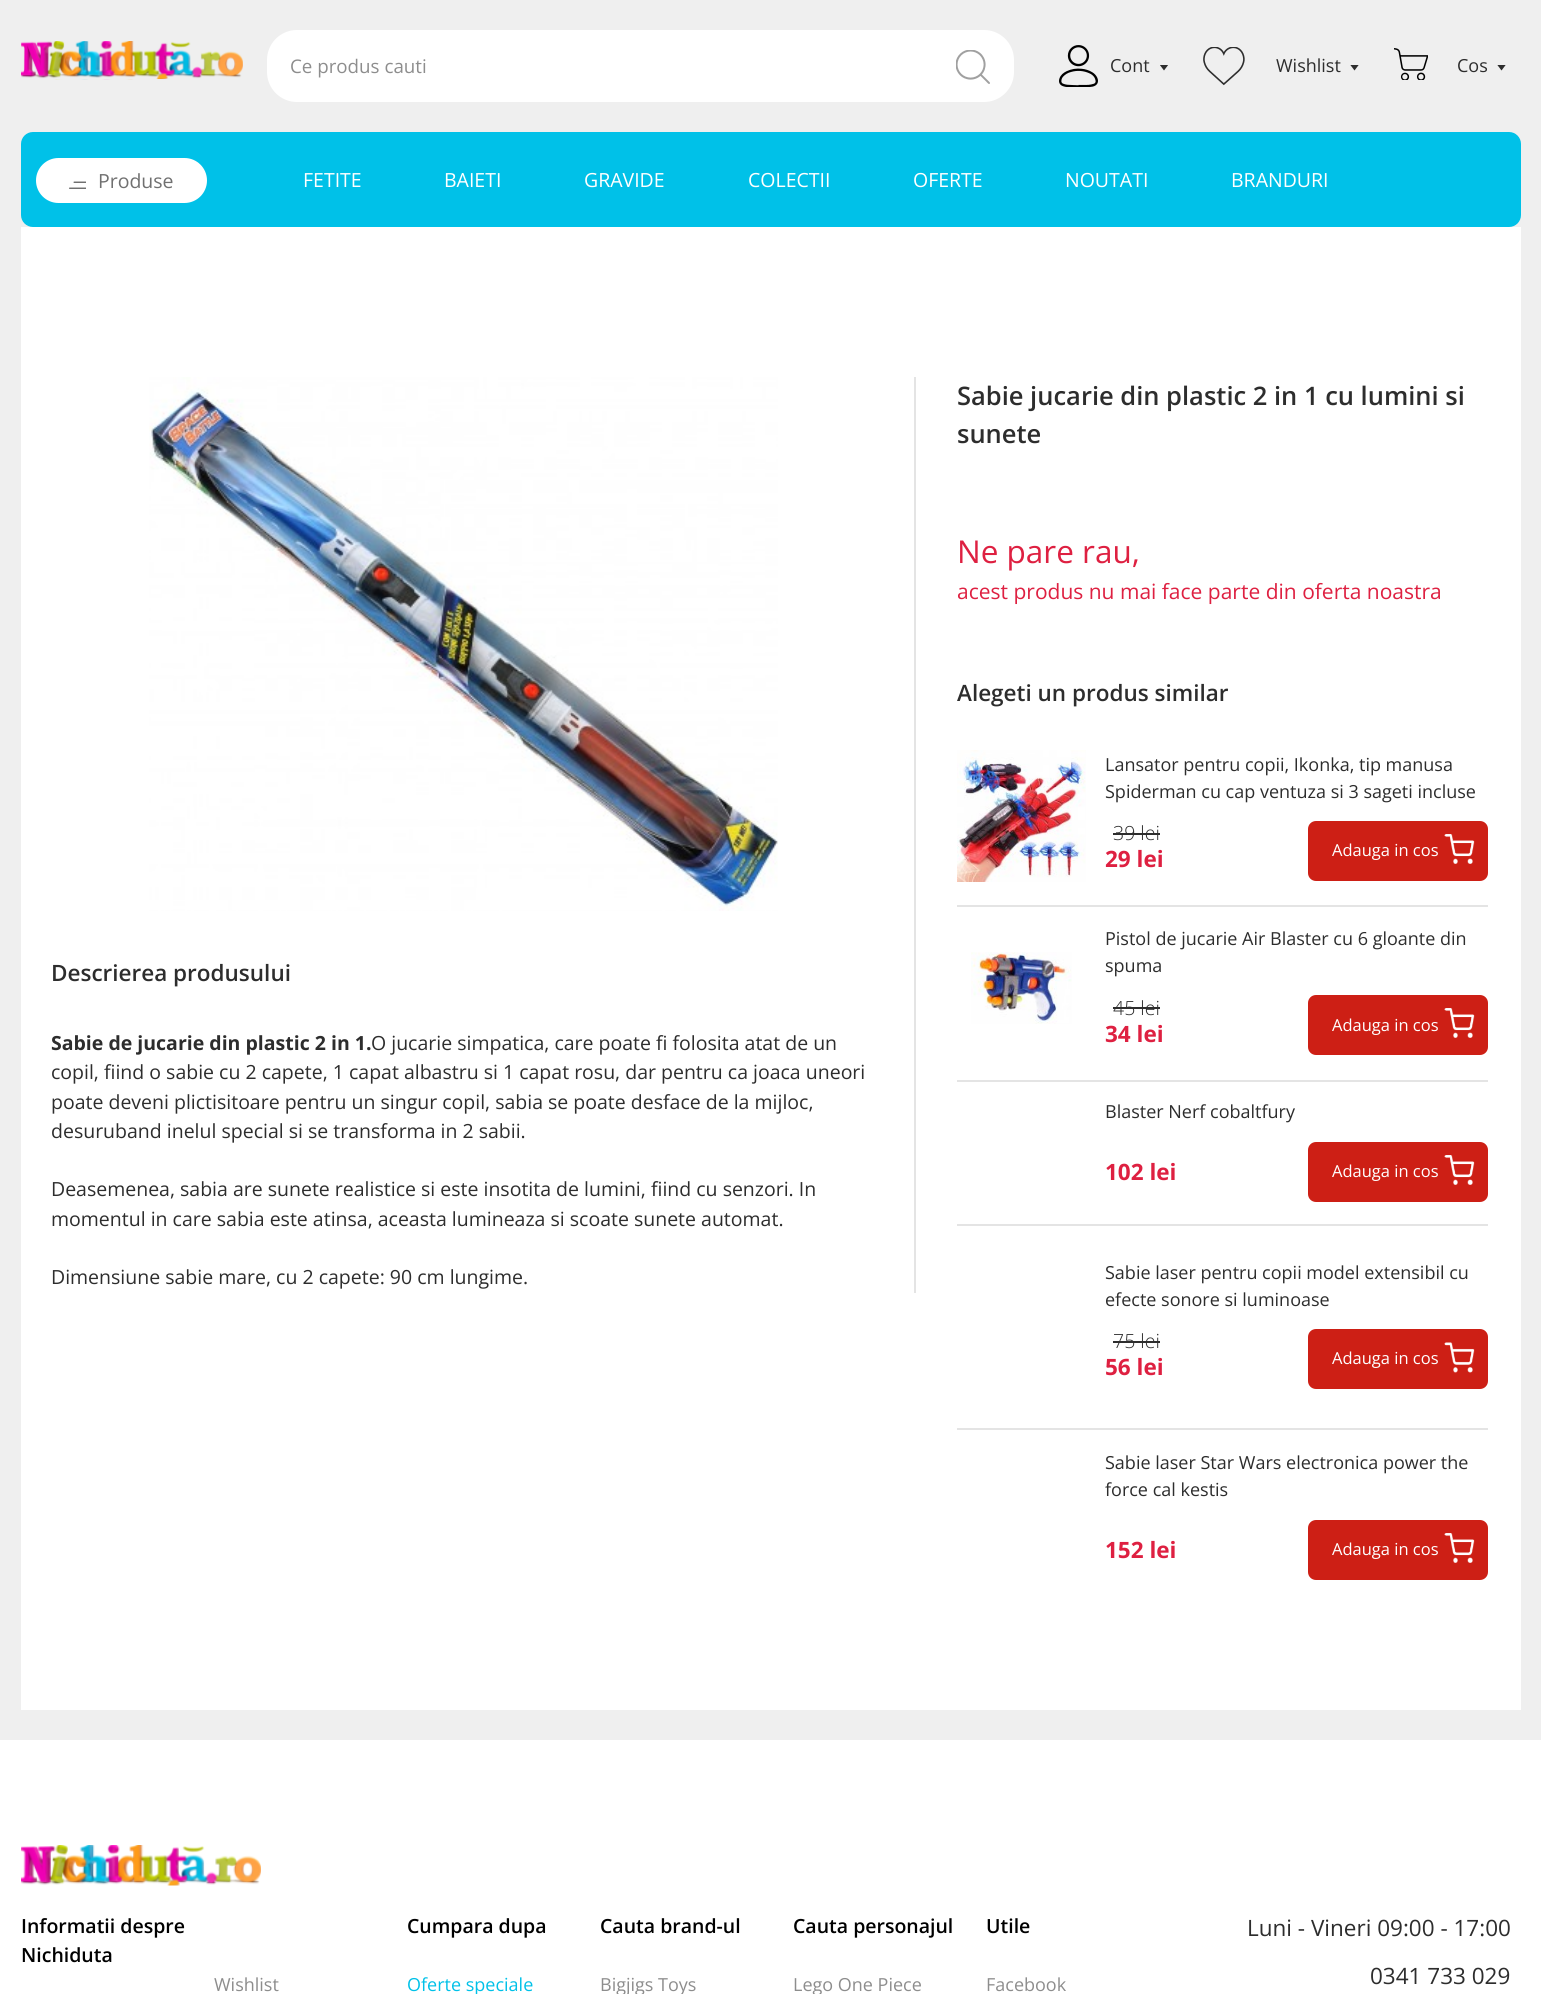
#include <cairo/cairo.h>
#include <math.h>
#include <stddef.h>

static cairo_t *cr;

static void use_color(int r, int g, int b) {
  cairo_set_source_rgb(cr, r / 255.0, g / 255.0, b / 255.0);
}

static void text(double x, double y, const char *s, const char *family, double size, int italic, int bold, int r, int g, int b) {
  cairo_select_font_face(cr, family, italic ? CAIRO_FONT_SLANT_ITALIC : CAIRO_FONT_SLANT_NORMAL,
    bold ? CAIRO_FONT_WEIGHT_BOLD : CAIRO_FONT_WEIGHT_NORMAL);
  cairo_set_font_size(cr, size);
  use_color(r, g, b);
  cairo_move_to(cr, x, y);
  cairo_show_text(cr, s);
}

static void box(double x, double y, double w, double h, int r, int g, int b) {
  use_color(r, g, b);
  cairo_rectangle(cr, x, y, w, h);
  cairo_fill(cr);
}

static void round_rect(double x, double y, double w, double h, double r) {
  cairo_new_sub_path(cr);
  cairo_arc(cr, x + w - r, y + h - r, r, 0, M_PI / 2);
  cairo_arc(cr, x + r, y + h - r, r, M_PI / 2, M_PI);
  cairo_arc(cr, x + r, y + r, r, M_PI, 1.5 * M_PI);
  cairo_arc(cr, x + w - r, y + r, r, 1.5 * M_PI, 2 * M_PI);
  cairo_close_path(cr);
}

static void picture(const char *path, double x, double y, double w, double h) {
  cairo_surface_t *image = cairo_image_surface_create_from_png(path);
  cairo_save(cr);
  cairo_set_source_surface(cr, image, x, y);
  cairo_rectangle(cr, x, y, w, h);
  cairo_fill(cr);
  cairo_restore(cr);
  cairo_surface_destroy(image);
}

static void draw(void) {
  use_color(239, 239, 239);
  cairo_paint(cr);
  picture("img_01.png", 21, 41, 222, 39);
  use_color(255, 255, 255);
  round_rect(267, 30, 747, 72, 30);
  cairo_fill(cr);
  picture("img_02.png", 956, 50, 34, 34);
  picture("img_03.png", 1059, 45, 39, 42);
  cairo_save(cr);
  cairo_rectangle(cr, 1160, 65, 9, 6);
  cairo_clip(cr);
  use_color(45, 45, 45);
  cairo_new_path(cr);
  cairo_move_to(cr, 1164, 70.5);
  cairo_line_to(cr, 1159.5, 64.5);
  cairo_line_to(cr, 1168.5, 64.5);
  cairo_close_path(cr);
  cairo_fill(cr);
  cairo_restore(cr);
  picture("img_04.png", 1203, 47, 42, 39);
  cairo_save(cr);
  cairo_rectangle(cr, 1350, 65, 9, 6);
  cairo_clip(cr);
  use_color(45, 45, 45);
  cairo_new_path(cr);
  cairo_move_to(cr, 1354.5, 70.5);
  cairo_line_to(cr, 1350, 64.5);
  cairo_line_to(cr, 1359, 64.5);
  cairo_close_path(cr);
  cairo_fill(cr);
  cairo_restore(cr);
  picture("img_05.png", 1394, 48, 34, 32);
  cairo_save(cr);
  cairo_rectangle(cr, 1497, 65, 9, 6);
  cairo_clip(cr);
  use_color(45, 45, 45);
  cairo_new_path(cr);
  cairo_move_to(cr, 1501.5, 70.5);
  cairo_line_to(cr, 1497, 64.5);
  cairo_line_to(cr, 1506, 64.5);
  cairo_close_path(cr);
  cairo_fill(cr);
  cairo_restore(cr);
  use_color(0, 193, 232);
  round_rect(21, 132, 1500, 95, 12);
  cairo_fill(cr);
  use_color(255, 255, 255);
  round_rect(36, 158, 171, 45, 22.5);
  cairo_fill(cr);
  picture("img_06.png", 69, 181, 17, 8);
  box(21, 227, 1500, 1483, 255, 255, 255);
  box(914, 377, 2, 916, 228, 228, 228);
  picture("img_07.png", 149, 377, 629, 534);
  box(957, 905, 531, 2, 228, 228, 228);
  picture("img_08.png", 957, 750, 129, 132);
  box(1113, 833, 47, 2, 45, 45, 45);
  use_color(205, 31, 21);
  round_rect(1309, 822, 178, 58, 7);
  cairo_fill_preserve(cr);
  cairo_stroke(cr);
  picture("img_09.png", 1444, 834, 31, 30);
  box(957, 1080, 531, 2, 228, 228, 228);
  picture("img_10.png", 971, 952, 101, 72);
  box(1113, 1007, 47, 2, 45, 45, 45);
  use_color(205, 31, 21);
  round_rect(1309, 996, 178, 58, 7);
  cairo_fill_preserve(cr);
  cairo_stroke(cr);
  picture("img_11.png", 1444, 1008, 31, 30);
  box(957, 1224, 531, 2, 228, 228, 228);
  use_color(205, 31, 21);
  round_rect(1309, 1143, 178, 58, 7);
  cairo_fill_preserve(cr);
  cairo_stroke(cr);
  picture("img_12.png", 1444, 1155, 31, 30);
  box(957, 1428, 531, 2, 228, 228, 228);
  box(1113, 1341, 47, 2, 45, 45, 45);
  use_color(205, 31, 21);
  round_rect(1309, 1330, 178, 58, 7);
  cairo_fill_preserve(cr);
  cairo_stroke(cr);
  picture("img_13.png", 1444, 1342, 31, 31);
  round_rect(1309, 1521, 178, 58, 7);
  cairo_fill_preserve(cr);
  cairo_stroke(cr);
  picture("img_09.png", 1444, 1533, 31, 30);
  box(0, 1740, 1541, 254, 255, 255, 255);
  picture("img_14.png", 21, 1845, 240, 41);
  text(290, 73, "Ce produs cauti", "Open Sans", 18.75, 0, 0, 141, 141, 141);
  text(1110, 72, "Cont", "Open Sans", 18, 0, 0, 45, 45, 45);
  text(1276, 72, "Wishlist", "Open Sans", 18, 0, 0, 45, 45, 45);
  text(1457, 72, "Cos", "Open Sans", 18, 0, 0, 45, 45, 45);
  text(98, 188, "Produse", "Open Sans", 19.5, 0, 0, 112, 112, 112);
  text(303, 187, "FETITE", "Open Sans", 19.5, 0, 0, 255, 255, 255);
  text(444, 187, "BAIETI", "Open Sans", 19.5, 0, 0, 255, 255, 255);
  text(584, 187, "GRAVIDE", "Open Sans", 19.5, 0, 0, 255, 255, 255);
  text(748, 187, "COLECTII", "Open Sans", 19.5, 0, 0, 255, 255, 255);
  text(913, 187, "OFERTE", "Open Sans", 19.5, 0, 0, 255, 255, 255);
  text(1065, 187, "NOUTATI", "Open Sans", 19.5, 0, 0, 255, 255, 255);
  text(1231, 187, "BRANDURI", "Open Sans", 19.5, 0, 0, 255, 255, 255);
  text(51, 981, "Descrierea produsului", "Open Sans SemiBold", 22.5, 0, 0, 45, 45, 45);
  text(51, 1050, "Sabie de jucarie din plastic 2 in 1.", "Open Sans", 19.5, 0, 1, 45, 45, 45);
  text(371, 1050, "O jucarie simpatica, care poate fi folosita atat de un", "Open Sans", 19.5, 0, 0, 45, 45, 45);
  text(51, 1079, "copil, fiind o sabie cu 2 capete, 1 capat albastru si 1 capat rosu, dar pentru ca joaca uneori", "Open Sans", 19.5, 0, 0, 45, 45, 45);
  text(51, 1109, "poate deveni plictisitoare pentru un singur copil, sabia se poate desface de la mijloc,", "Open Sans", 19.5, 0, 0, 45, 45, 45);
  text(51, 1138, "desuruband inelul special si se transforma in 2 sabii.", "Open Sans", 19.5, 0, 0, 45, 45, 45);
  text(51, 1196, "Deasemenea, sabia are sunete realistice si este insotita de lumini, fiind cu senzori. In", "Open Sans", 19.5, 0, 0, 45, 45, 45);
  text(51, 1226, "momentul in care sabia este atinsa, aceasta lumineaza si scoate sunete automat.", "Open Sans", 19.5, 0, 0, 45, 45, 45);
  text(51, 1284, "Dimensiune sabie mare, cu 2 capete: 90 cm lungime.", "Open Sans", 19.5, 0, 0, 45, 45, 45);
  text(957, 405, "Sabie jucarie din plastic 2 in 1 cu lumini si", "Open Sans SemiBold", 25.5, 0, 0, 45, 45, 45);
  text(957, 443, "sunete", "Open Sans SemiBold", 25.5, 0, 0, 45, 45, 45);
  text(957, 563, "Ne pare rau,", "Open Sans", 31.5, 0, 0, 222, 32, 65);
  text(957, 599, "acest produs nu mai face parte din oferta noastra", "Open Sans", 21, 0, 0, 222, 32, 65);
  text(957, 701, "Alegeti un produs similar", "Open Sans SemiBold", 22.5, 0, 0, 45, 45, 45);
  text(1105, 771, "Lansator pentru copii, Ikonka, tip manusa", "Open Sans", 18, 0, 0, 45, 45, 45);
  text(1105, 798, "Spiderman cu cap ventuza si 3 sageti incluse", "Open Sans", 18, 0, 0, 45, 45, 45);
  text(1113, 840, "39 lei", "Open Sans Light", 19.5, 0, 0, 45, 45, 45);
  text(1105, 867, "29 lei", "Open Sans", 22.5, 0, 1, 222, 32, 65);
  text(1332, 856, "Adauga in cos", "Open Sans", 16.5, 0, 0, 255, 255, 255);
  text(1105, 945, "Pistol de jucarie Air Blaster cu 6 gloante din", "Open Sans", 18, 0, 0, 45, 45, 45);
  text(1105, 972, "spuma", "Open Sans", 18, 0, 0, 45, 45, 45);
  text(1113, 1015, "45 lei", "Open Sans Light", 19.5, 0, 0, 45, 45, 45);
  text(1105, 1042, "34 lei", "Open Sans", 22.5, 0, 1, 222, 32, 65);
  text(1332, 1031, "Adauga in cos", "Open Sans", 16.5, 0, 0, 255, 255, 255);
  text(1105, 1118, "Blaster Nerf cobaltfury", "Open Sans", 18, 0, 0, 45, 45, 45);
  text(1105, 1180, "102 lei", "Open Sans", 22.5, 0, 1, 222, 32, 65);
  text(1332, 1177, "Adauga in cos", "Open Sans", 16.5, 0, 0, 255, 255, 255);
  text(1105, 1279, "Sabie laser pentru copii model extensibil cu", "Open Sans", 18, 0, 0, 45, 45, 45);
  text(1105, 1306, "efecte sonore si luminoase", "Open Sans", 18, 0, 0, 45, 45, 45);
  text(1113, 1348, "75 lei", "Open Sans Light", 19.5, 0, 0, 45, 45, 45);
  text(1105, 1375, "56 lei", "Open Sans", 22.5, 0, 1, 222, 32, 65);
  text(1332, 1364, "Adauga in cos", "Open Sans", 16.5, 0, 0, 255, 255, 255);
  text(1105, 1469, "Sabie laser Star Wars electronica power the", "Open Sans", 18, 0, 0, 45, 45, 45);
  text(1105, 1496, "force cal kestis", "Open Sans", 18, 0, 0, 45, 45, 45);
  text(1105, 1558, "152 lei", "Open Sans", 22.5, 0, 1, 222, 32, 65);
  text(1332, 1555, "Adauga in cos", "Open Sans", 16.5, 0, 0, 255, 255, 255);
  text(21, 1933, "Informatii despre", "Open Sans SemiBold", 19.5, 0, 0, 0, 0, 0);
  text(21, 1962, "Nichiduta", "Open Sans SemiBold", 19.5, 0, 0, 0, 0, 0);
  text(214, 1991, "Wishlist", "Open Sans", 18, 0, 0, 141, 141, 141);
  text(407, 1933, "Cumpara dupa", "Open Sans SemiBold", 19.5, 0, 0, 0, 0, 0);
  text(407, 1991, "Oferte speciale", "Open Sans", 18, 0, 0, 0, 193, 232);
  text(600, 1933, "Cauta brand-ul", "Open Sans SemiBold", 19.5, 0, 0, 0, 0, 0);
  text(600, 1991, "Bigjigs Toys", "Open Sans", 18, 0, 0, 141, 141, 141);
  text(793, 1933, "Cauta personajul", "Open Sans SemiBold", 19.5, 0, 0, 0, 0, 0);
  text(793, 1991, "Lego One Piece", "Open Sans", 18, 0, 0, 141, 141, 141);
  text(986, 1933, "Utile", "Open Sans SemiBold", 19.5, 0, 0, 0, 0, 0);
  text(986, 1991, "Facebook", "Open Sans", 18, 0, 0, 141, 141, 141);
  text(1247, 1936, "Luni - Vineri 09:00 - 17:00", "Open Sans", 22.5, 0, 0, 45, 45, 45);
  text(1370, 1984, "0341 733 029", "Open Sans", 22.5, 0, 0, 45, 45, 45);
}

int main(void) {
  cairo_surface_t *surface = cairo_image_surface_create(CAIRO_FORMAT_RGB24, 1541, 1994);
  cr = cairo_create(surface);
  cairo_font_options_t *options = cairo_font_options_create();
  cairo_font_options_set_hint_metrics(options, CAIRO_HINT_METRICS_OFF);
  cairo_font_options_set_hint_style(options, CAIRO_HINT_STYLE_NONE);
  cairo_set_font_options(cr, options);
  cairo_set_miter_limit(cr, 4);
  draw();
  cairo_surface_write_to_png(surface, "out.png");
  cairo_font_options_destroy(options);
  cairo_destroy(cr);
  cairo_surface_destroy(surface);
  return 0;
}
